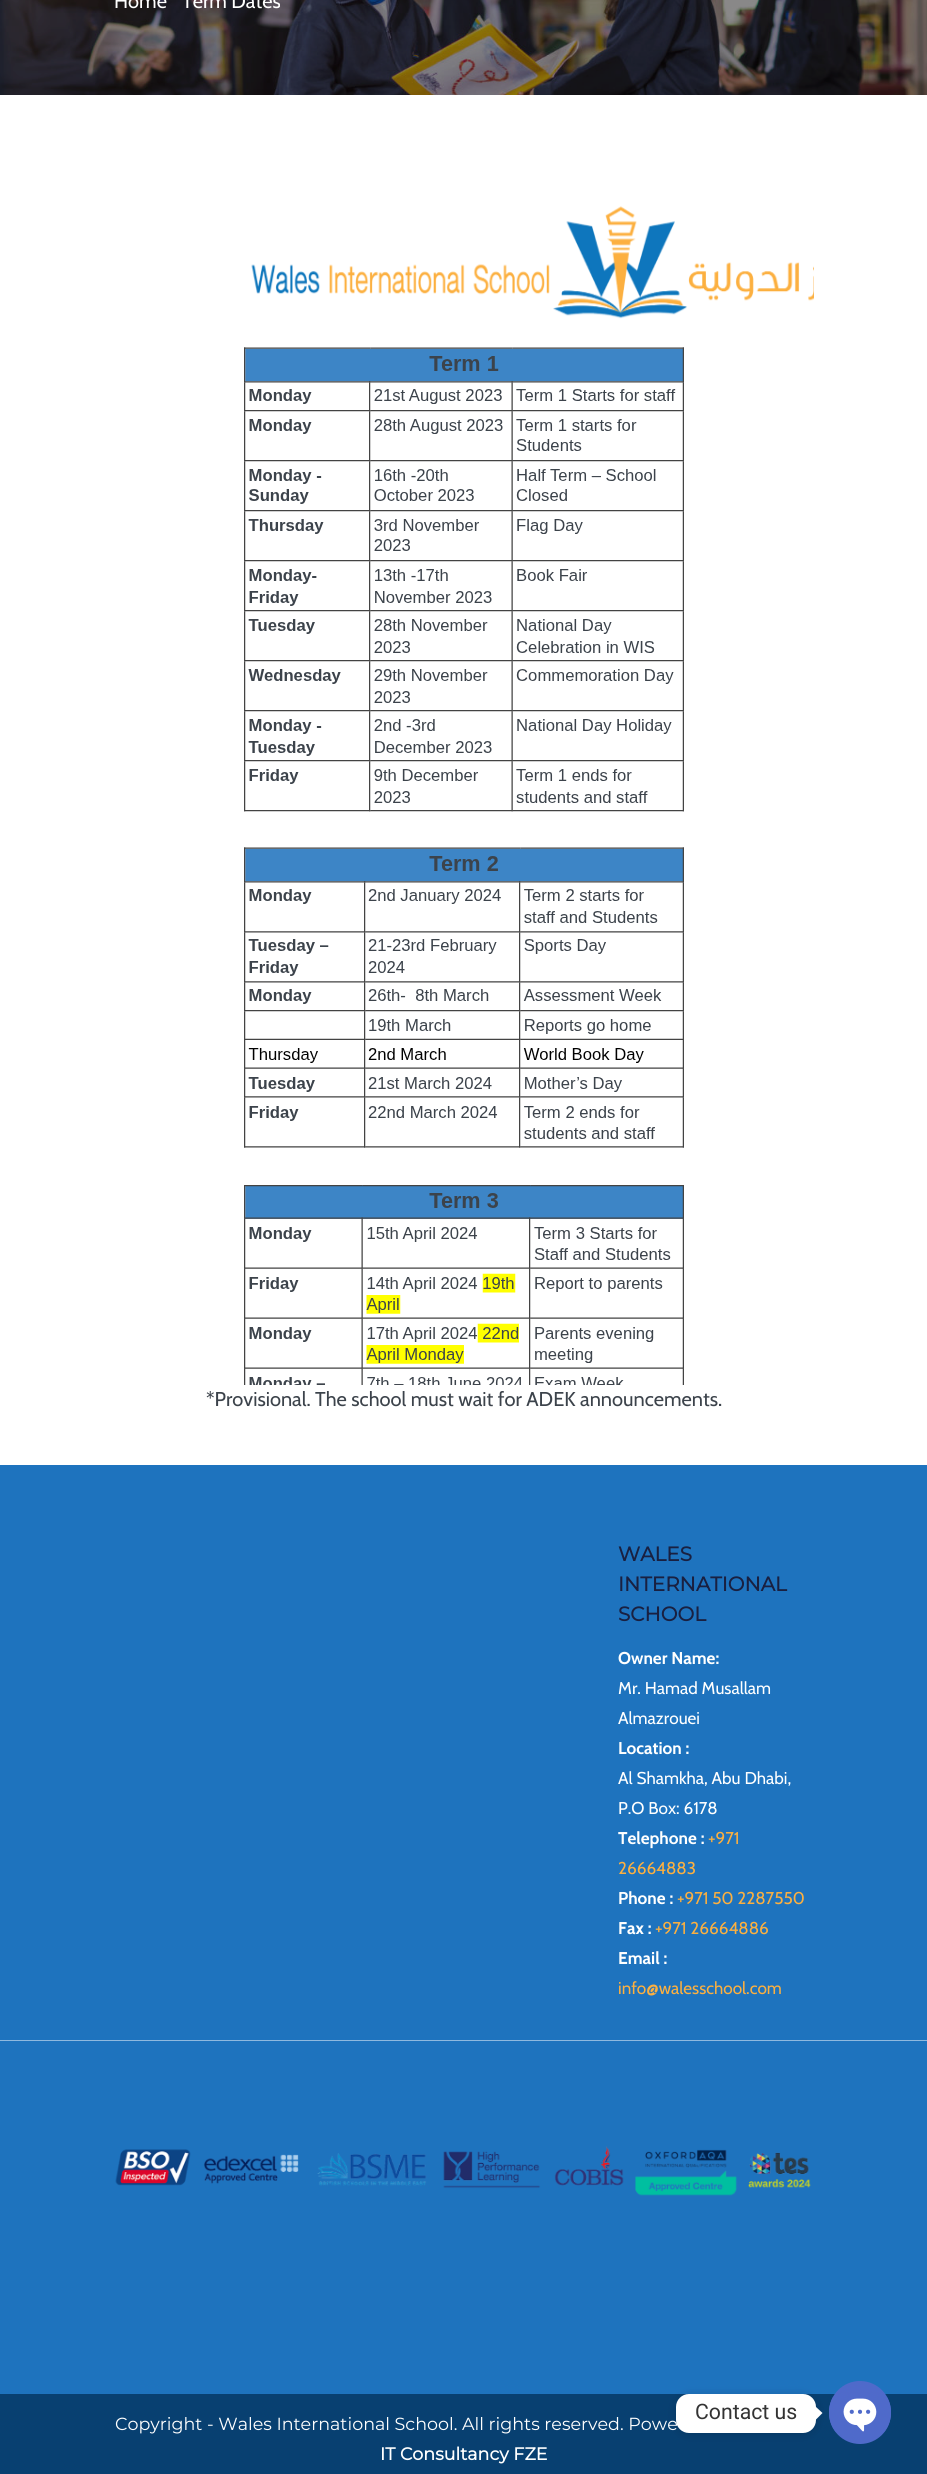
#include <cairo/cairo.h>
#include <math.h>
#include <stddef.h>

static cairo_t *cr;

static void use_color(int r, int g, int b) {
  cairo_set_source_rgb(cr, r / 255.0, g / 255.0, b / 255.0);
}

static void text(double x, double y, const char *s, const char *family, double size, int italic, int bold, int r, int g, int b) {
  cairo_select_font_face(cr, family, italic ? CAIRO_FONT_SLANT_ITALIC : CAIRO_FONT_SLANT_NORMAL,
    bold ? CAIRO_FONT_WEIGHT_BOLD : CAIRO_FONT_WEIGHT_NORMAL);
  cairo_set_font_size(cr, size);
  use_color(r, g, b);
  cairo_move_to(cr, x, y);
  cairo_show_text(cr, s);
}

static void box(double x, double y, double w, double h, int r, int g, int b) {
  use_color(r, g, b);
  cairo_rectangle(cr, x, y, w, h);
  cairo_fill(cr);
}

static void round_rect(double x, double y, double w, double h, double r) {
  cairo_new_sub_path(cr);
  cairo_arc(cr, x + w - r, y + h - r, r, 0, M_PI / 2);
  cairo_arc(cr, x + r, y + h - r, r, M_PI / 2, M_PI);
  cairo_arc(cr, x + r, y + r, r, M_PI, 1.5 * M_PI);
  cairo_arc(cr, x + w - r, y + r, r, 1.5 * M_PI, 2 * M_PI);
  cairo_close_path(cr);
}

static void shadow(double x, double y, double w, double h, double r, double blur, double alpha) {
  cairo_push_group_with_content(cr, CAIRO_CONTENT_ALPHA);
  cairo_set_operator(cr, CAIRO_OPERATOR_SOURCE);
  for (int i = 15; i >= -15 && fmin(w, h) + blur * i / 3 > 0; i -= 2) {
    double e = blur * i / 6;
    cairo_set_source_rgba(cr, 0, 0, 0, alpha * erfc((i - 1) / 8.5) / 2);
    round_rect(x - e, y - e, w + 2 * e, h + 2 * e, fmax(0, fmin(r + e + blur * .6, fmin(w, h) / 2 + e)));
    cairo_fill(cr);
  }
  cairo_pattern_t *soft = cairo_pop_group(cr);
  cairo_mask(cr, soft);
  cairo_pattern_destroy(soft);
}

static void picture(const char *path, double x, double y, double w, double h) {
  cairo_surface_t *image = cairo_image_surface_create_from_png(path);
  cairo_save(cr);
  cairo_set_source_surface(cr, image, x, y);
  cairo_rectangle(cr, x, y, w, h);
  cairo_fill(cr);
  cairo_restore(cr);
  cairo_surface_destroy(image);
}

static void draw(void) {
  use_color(255, 255, 255);
  cairo_paint(cr);
  picture("img_01.png", 0, 0, 927, 95);
  picture("img_02.png", 244, 206, 570, 1179);
  box(0, 1465, 927, 929, 30, 115, 190);
  box(0, 2040, 927, 1, 143, 185, 223);
  picture("img_03.png", 115, 2146, 696, 50);
  box(0, 2394, 927, 80, 8, 64, 113);
  use_color(0, 0, 0);
  shadow(676, 2395, 140, 39, 13, 5, 0.15);
  use_color(255, 255, 255);
  round_rect(676, 2394, 140, 39, 13);
  cairo_fill(cr);
  cairo_new_path(cr);
  cairo_move_to(cr, 816, 2419.5);
  cairo_line_to(cr, 816, 2407);
  cairo_line_to(cr, 822.5, 2413);
  cairo_close_path(cr);
  cairo_fill(cr);
  use_color(79, 106, 202);
  round_rect(829, 2381, 62, 63, 31);
  cairo_fill(cr);
  picture("img_04.png", 829, 2397, 62, 35);
  text(114, 8, "Home", "Cabin", 20, 0, 0, 255, 255, 255);
  text(182, 8, "Term Dates", "Cabin", 20, 0, 0, 255, 255, 255);
  text(206, 1406, "*Provisional. The school must wait for ADEK announcements.", "Cabin", 20, 0, 0, 60, 67, 75);
  text(618, 1561, "WALES", "Montserrat", 20, 0, 1, 25, 32, 65);
  text(618, 1591, "INTERNATIONAL", "Montserrat", 20, 0, 1, 25, 32, 65);
  text(618, 1621, "SCHOOL", "Montserrat", 20, 0, 1, 25, 32, 65);
  text(618, 1664, "Owner Name:", "Cabin", 17.1, 0, 1, 255, 255, 255);
  text(618, 1694, "Mr. Hamad Musallam", "Cabin", 17.1, 0, 0, 255, 255, 255);
  text(618, 1724, "Almazrouei", "Cabin", 17.1, 0, 0, 255, 255, 255);
  text(618, 1754, "Location :", "Cabin", 17.1, 0, 1, 255, 255, 255);
  text(618, 1784, "Al Shamkha, Abu Dhabi,", "Cabin", 17.1, 0, 0, 255, 255, 255);
  text(618, 1814, "P.O Box: 6178", "Cabin", 17.1, 0, 0, 255, 255, 255);
  text(618, 1844, "Telephone :", "Cabin", 17.1, 0, 1, 255, 255, 255);
  text(708, 1844, "+971", "Cabin", 17.1, 0, 0, 252, 176, 64);
  text(618, 1874, "26664883", "Cabin", 17.1, 0, 0, 252, 176, 64);
  text(618, 1904, "Phone :", "Cabin", 17.1, 0, 1, 255, 255, 255);
  text(677, 1904, "+971 50 2287550", "Cabin", 17.1, 0, 0, 252, 176, 64);
  text(618, 1934, "Fax :", "Cabin", 17.1, 0, 1, 255, 255, 255);
  text(655, 1934, "+971 26664886", "Cabin", 17.1, 0, 0, 252, 176, 64);
  text(618, 1964, "Email :", "Cabin", 17.1, 0, 1, 255, 255, 255);
  text(618, 1994, "info@walesschool.com", "Cabin", 17.1, 0, 0, 252, 176, 64);
  text(115, 2430, "Copyright - Wales International School. All rights reserved. Powe", "Montserrat Thin", 17.5, 0, 0, 255, 255, 255);
  text(380, 2460, "IT Consultancy FZE", "Montserrat", 17.5, 0, 1, 255, 255, 255);
  text(695, 2419, "Contact us", "Roboto", 21.25, 0, 0, 51, 51, 51);
}

int main(void) {
  cairo_surface_t *surface = cairo_image_surface_create(CAIRO_FORMAT_RGB24, 927, 2474);
  cr = cairo_create(surface);
  cairo_font_options_t *options = cairo_font_options_create();
  cairo_font_options_set_hint_metrics(options, CAIRO_HINT_METRICS_OFF);
  cairo_font_options_set_hint_style(options, CAIRO_HINT_STYLE_NONE);
  cairo_set_font_options(cr, options);
  cairo_set_miter_limit(cr, 4);
  draw();
  cairo_surface_write_to_png(surface, "out.png");
  cairo_font_options_destroy(options);
  cairo_destroy(cr);
  cairo_surface_destroy(surface);
  return 0;
}
